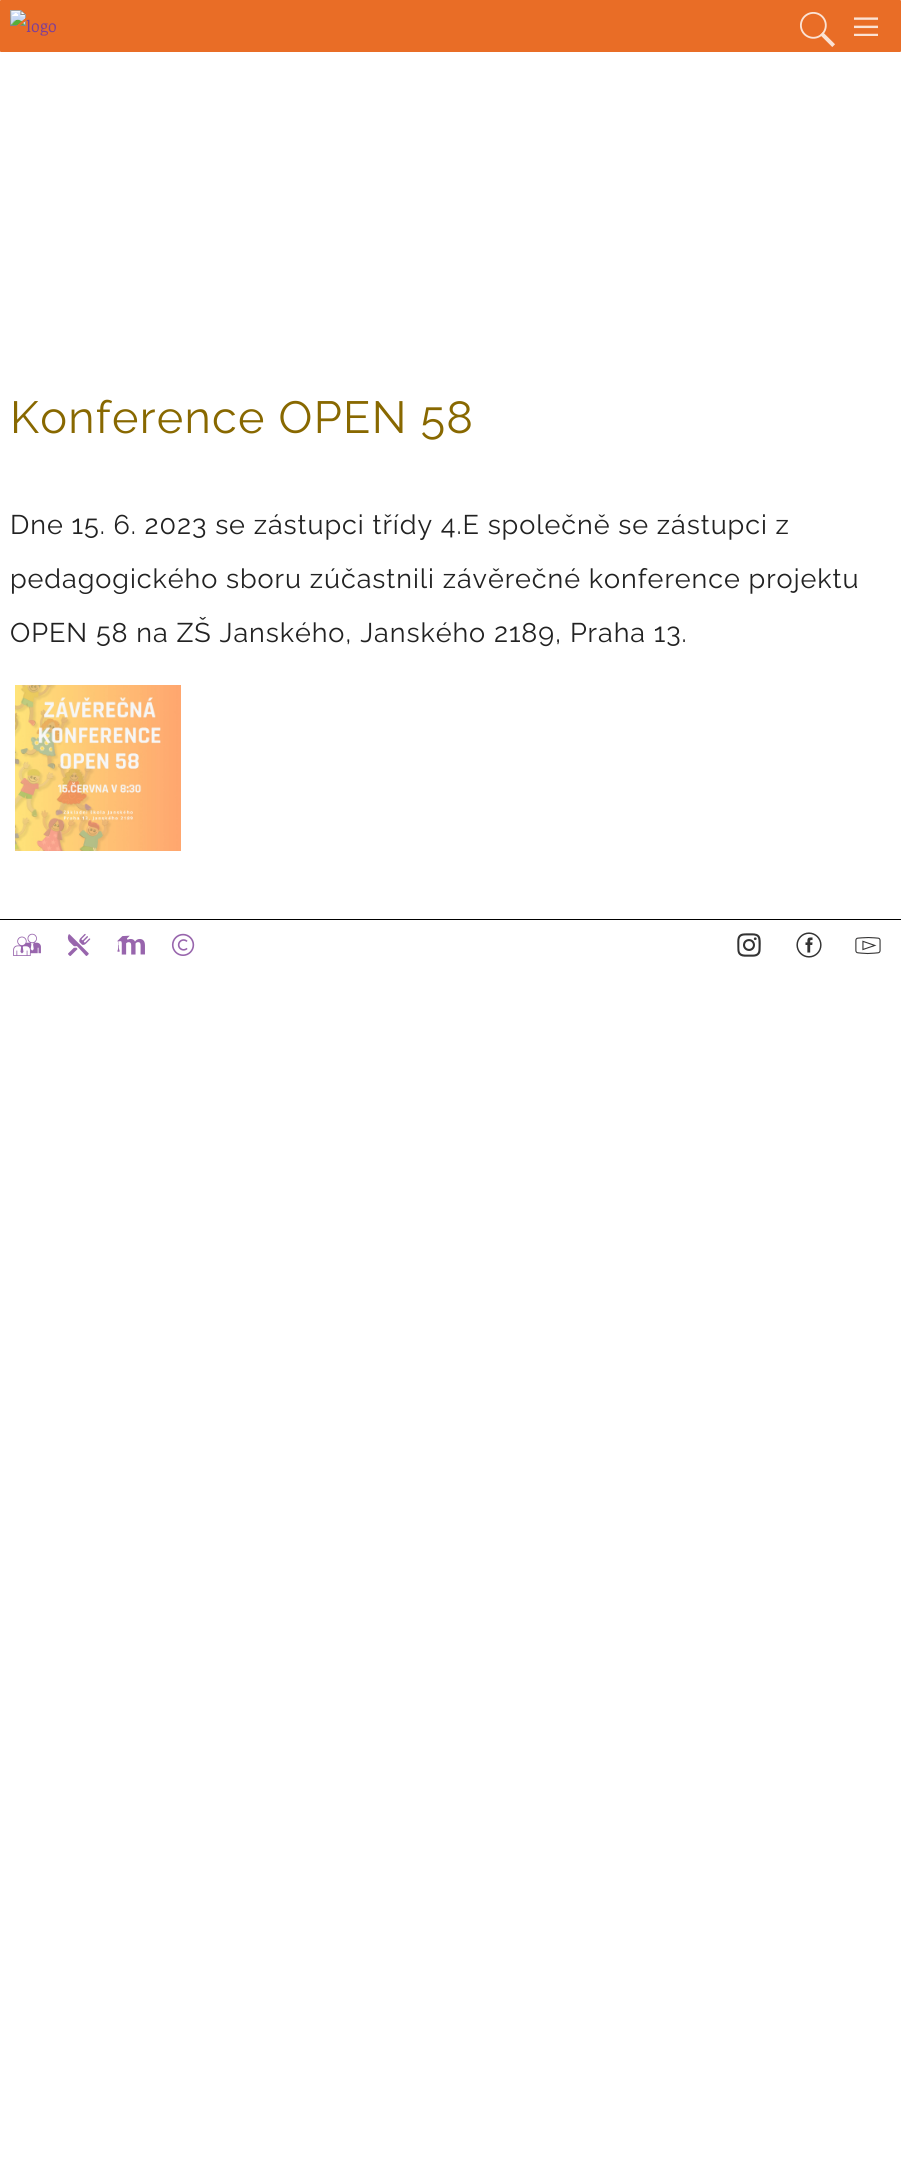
#include <cairo/cairo.h>
#include <math.h>
#include <stddef.h>

static cairo_t *cr;

static void use_color(int r, int g, int b) {
  cairo_set_source_rgb(cr, r / 255.0, g / 255.0, b / 255.0);
}

static void spaced_text(double x, double y, const char *s, double letter, double word) {
  cairo_move_to(cr, x, y);
  while (*s) {
    char ch[5] = {0};
    int n = 0;
    do ch[n++] = *s++; while ((*s & 0xC0) == 0x80);
    cairo_show_text(cr, ch);
    cairo_rel_move_to(cr, letter + word * (*ch == ' '), 0);
  }
}

static void box(double x, double y, double w, double h, int r, int g, int b) {
  use_color(r, g, b);
  cairo_rectangle(cr, x, y, w, h);
  cairo_fill(cr);
}

static void round_rect(double x, double y, double w, double h, double r) {
  cairo_new_sub_path(cr);
  cairo_arc(cr, x + w - r, y + h - r, r, 0, M_PI / 2);
  cairo_arc(cr, x + r, y + h - r, r, M_PI / 2, M_PI);
  cairo_arc(cr, x + r, y + r, r, M_PI, 1.5 * M_PI);
  cairo_arc(cr, x + w - r, y + r, r, 1.5 * M_PI, 2 * M_PI);
  cairo_close_path(cr);
}

static void picture(const char *path, double x, double y, double w, double h) {
  cairo_surface_t *image = cairo_image_surface_create_from_png(path);
  cairo_save(cr);
  cairo_set_source_surface(cr, image, x, y);
  cairo_rectangle(cr, x, y, w, h);
  cairo_fill(cr);
  cairo_restore(cr);
  cairo_surface_destroy(image);
}

static void draw(void) {
  use_color(255, 255, 255);
  cairo_paint(cr);
  use_color(233, 109, 38);
  round_rect(0, 0, 901, 52, 1);
  cairo_fill(cr);
  picture("img_01.png", 10, 10, 46, 26);
  picture("img_02.png", 800, 12, 35, 35);
  picture("img_03.png", 854, 17, 24, 19);
  picture("img_04.png", 15, 685, 166, 166);
  box(0, 919, 901, 1, 0, 0, 0);
  picture("img_05.png", 13, 933, 28, 23);
  picture("img_06.png", 67, 933, 24, 23);
  picture("img_07.png", 117, 935, 28, 20);
  picture("img_08.png", 171, 933, 24, 23);
  picture("img_09.png", 737, 933, 24, 24);
  picture("img_10.png", 796, 932, 26, 26);
  picture("img_11.png", 855, 937, 26, 18);
  cairo_select_font_face(cr, "Raleway", CAIRO_FONT_SLANT_NORMAL, CAIRO_FONT_WEIGHT_NORMAL);
  cairo_set_font_size(cr, 45);
  use_color(136, 104, 0);
  spaced_text(10, 433, "Konference OPEN 58", 1.3, 0);
  cairo_set_font_size(cr, 27);
  use_color(34, 34, 34);
  spaced_text(10, 534, "Dne 15. 6. 2023 se zástupci třídy 4.E společně se zástupci z", 0.93, 0);
  spaced_text(10, 588, "pedagogického sboru zúčastnili závěrečné konference projektu", 0.93, 0);
  spaced_text(10, 642, "OPEN 58 na ZŠ Janského, Janského 2189, Praha 13.", 0.93, 0);
}

int main(void) {
  cairo_surface_t *surface = cairo_image_surface_create(CAIRO_FORMAT_RGB24, 901, 2161);
  cr = cairo_create(surface);
  cairo_font_options_t *options = cairo_font_options_create();
  cairo_font_options_set_hint_metrics(options, CAIRO_HINT_METRICS_OFF);
  cairo_font_options_set_hint_style(options, CAIRO_HINT_STYLE_NONE);
  cairo_set_font_options(cr, options);
  cairo_set_miter_limit(cr, 4);
  draw();
  cairo_surface_write_to_png(surface, "out.png");
  cairo_font_options_destroy(options);
  cairo_destroy(cr);
  cairo_surface_destroy(surface);
  return 0;
}
